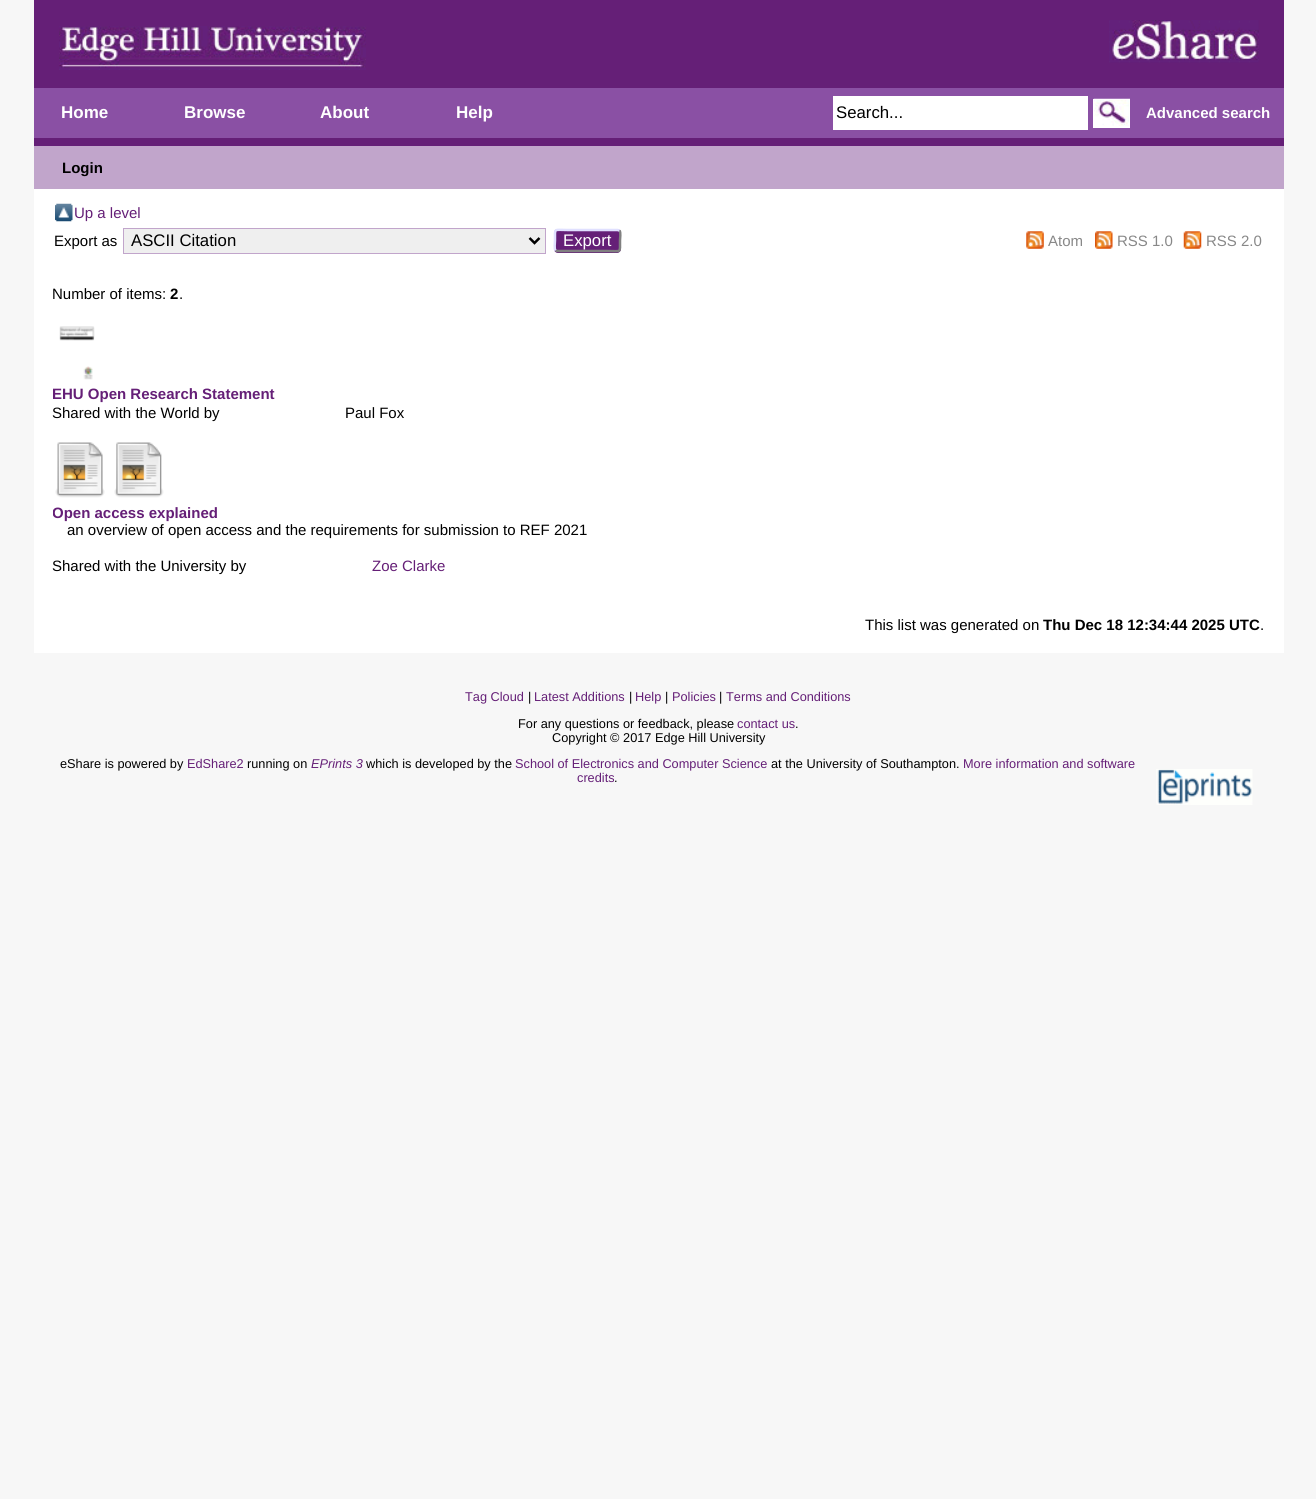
#include <cairo/cairo.h>
#include <math.h>
#include <stddef.h>

static cairo_t *cr;

static void use_color(int r, int g, int b) {
  cairo_set_source_rgb(cr, r / 255.0, g / 255.0, b / 255.0);
}

static void text(double x, double y, const char *s, const char *family, double size, int italic, int bold, int r, int g, int b) {
  cairo_select_font_face(cr, family, italic ? CAIRO_FONT_SLANT_ITALIC : CAIRO_FONT_SLANT_NORMAL,
    bold ? CAIRO_FONT_WEIGHT_BOLD : CAIRO_FONT_WEIGHT_NORMAL);
  cairo_set_font_size(cr, size);
  use_color(r, g, b);
  cairo_move_to(cr, x, y);
  cairo_show_text(cr, s);
}

static void box(double x, double y, double w, double h, int r, int g, int b) {
  use_color(r, g, b);
  cairo_rectangle(cr, x, y, w, h);
  cairo_fill(cr);
}

static void round_rect(double x, double y, double w, double h, double r) {
  cairo_new_sub_path(cr);
  cairo_arc(cr, x + w - r, y + h - r, r, 0, M_PI / 2);
  cairo_arc(cr, x + r, y + h - r, r, M_PI / 2, M_PI);
  cairo_arc(cr, x + r, y + r, r, M_PI, 1.5 * M_PI);
  cairo_arc(cr, x + w - r, y + r, r, 1.5 * M_PI, 2 * M_PI);
  cairo_close_path(cr);
}

static void picture(const char *path, double x, double y, double w, double h) {
  cairo_surface_t *image = cairo_image_surface_create_from_png(path);
  cairo_save(cr);
  cairo_set_source_surface(cr, image, x, y);
  cairo_rectangle(cr, x, y, w, h);
  cairo_fill(cr);
  cairo_restore(cr);
  cairo_surface_destroy(image);
}

static void draw(void) {
  use_color(247, 247, 247);
  cairo_paint(cr);
  box(34, 0, 1250, 146, 101, 31, 119);
  picture("img_01.png", 59, 26, 307, 44);
  picture("img_02.png", 1109, 20, 150, 43);
  box(34, 88, 1250, 50, 138, 80, 164);
  box(833, 96, 255, 34, 255, 255, 255);
  box(1094, 126, 35, 1, 255, 255, 255);
  picture("img_03.png", 1093, 98, 37, 28);
  cairo_rectangle(cr, 1093.5, 99.5, 36, 28);
  cairo_set_line_width(cr, 1);
  cairo_stroke(cr);
  box(34, 146, 1250, 43, 193, 165, 203);
  box(34, 189, 1250, 464, 255, 255, 255);
  picture("img_04.png", 55, 203, 18, 19);
  use_color(239, 239, 239);
  cairo_rectangle(cr, 123.5, 228.5, 422, 25);
  cairo_fill_preserve(cr);
  use_color(193, 165, 203);
  cairo_stroke(cr);
  cairo_new_path(cr);
  cairo_move_to(cr, 529.5, 238);
  cairo_line_to(cr, 534.5, 243);
  cairo_line_to(cr, 539.5, 238);
  use_color(0, 0, 0);
  cairo_set_line_width(cr, 2.5);
  cairo_stroke(cr);
  use_color(101, 31, 119);
  round_rect(554, 229, 67, 24, 4);
  cairo_fill(cr);
  cairo_new_path(cr);
  cairo_move_to(cr, 619.5, 230.5);
  cairo_curve_to(cr, 621, 232.5, 620, 238.5, 620, 240.5);
  cairo_curve_to(cr, 620, 253.5, 621.5, 251, 607.5, 251);
  cairo_line_to(cr, 557.5, 251);
  cairo_line_to(cr, 555.5, 250.5);
  use_color(128, 128, 128);
  cairo_stroke(cr);
  cairo_new_path(cr);
  cairo_move_to(cr, 555.5, 250.5);
  cairo_curve_to(cr, 554, 248.5, 555, 243, 555, 240.5);
  cairo_curve_to(cr, 555, 227.5, 553.5, 230, 567.5, 230);
  cairo_line_to(cr, 617.5, 230);
  cairo_line_to(cr, 619.5, 230.5);
  use_color(224, 224, 255);
  cairo_stroke(cr);
  picture("img_05.png", 1026, 231, 18, 18);
  picture("img_06.png", 1095, 231, 18, 18);
  picture("img_07.png", 1183, 231, 19, 18);
  picture("img_08.png", 59, 326, 36, 54);
  picture("img_09.png", 55, 442, 50, 56);
  picture("img_10.png", 114, 442, 50, 56);
  picture("img_11.png", 1156, 769, 97, 36);
  text(61, 118, "Home", "Liberation Sans", 17, 0, 1, 255, 255, 255);
  text(184, 118, "Browse", "Liberation Sans", 17, 0, 1, 255, 255, 255);
  text(320, 118, "About", "Liberation Sans", 17, 0, 1, 255, 255, 255);
  text(456, 118, "Help", "Liberation Sans", 17, 0, 1, 255, 255, 255);
  text(836, 118, "Search...", "Liberation Sans", 16.75, 0, 0, 0, 0, 0);
  text(1146, 118, "Advanced search", "Liberation Sans", 15, 0, 1, 255, 255, 255);
  text(62, 173, "Login", "Liberation Sans", 15, 0, 1, 0, 0, 0);
  text(74, 218, "Up a level", "Liberation Sans", 15, 0, 0, 101, 31, 119);
  text(54, 246, "Export as", "Liberation Sans", 15, 0, 0, 0, 0, 0);
  text(131, 246, "ASCII Citation", "Liberation Sans", 16.75, 0, 0, 0, 0, 0);
  text(563, 246, "Export", "Liberation Sans", 16.75, 0, 0, 255, 255, 255);
  text(1048, 246, "Atom", "Liberation Sans", 15, 0, 0, 136, 136, 136);
  text(1117, 246, "RSS 1.0", "Liberation Sans", 15, 0, 0, 136, 136, 136);
  text(1206, 246, "RSS 2.0", "Liberation Sans", 15, 0, 0, 136, 136, 136);
  text(52, 299, "Number of items:", "Liberation Sans", 15, 0, 0, 0, 0, 0);
  text(170, 299, "2", "Liberation Sans", 15, 0, 1, 0, 0, 0);
  text(179, 299, ".", "Liberation Sans", 15, 0, 0, 0, 0, 0);
  cairo_save(cr);
  cairo_rectangle(cr, 53, 385, 1212, 40);
  cairo_clip(cr);
  text(52, 399, "EHU Open Research Statement", "Liberation Sans", 15, 0, 1, 101, 31, 119);
  cairo_restore(cr);
  text(52, 418, "Shared with the World by", "Liberation Sans", 15, 0, 0, 0, 0, 0);
  text(345, 418, "Paul Fox", "Liberation Sans", 15, 0, 0, 0, 0, 0);
  cairo_save(cr);
  cairo_rectangle(cr, 53, 504, 1212, 75);
  cairo_clip(cr);
  text(52, 518, "Open access explained", "Liberation Sans", 15, 0, 1, 101, 31, 119);
  cairo_restore(cr);
  text(67, 535, "an overview of open access and the requirements for submission to REF 2021", "Liberation Sans", 15, 0, 0, 0, 0, 0);
  text(52, 571, "Shared with the University by", "Liberation Sans", 15, 0, 0, 0, 0, 0);
  text(372, 571, "Zoe Clarke", "Liberation Sans", 15, 0, 0, 101, 31, 119);
  text(865, 630, "This list was generated on", "Liberation Sans", 15, 0, 0, 0, 0, 0);
  text(1043, 630, "Thu Dec 18 12:34:44 2025 UTC", "Liberation Sans", 15, 0, 1, 0, 0, 0);
  text(1260, 630, ".", "Liberation Sans", 15, 0, 0, 0, 0, 0);
  text(465, 701, "Tag Cloud", "Liberation Sans", 12.75, 0, 0, 101, 31, 119);
  text(528, 701, "|", "Liberation Sans", 12.75, 0, 0, 0, 0, 0);
  text(534, 701, "Latest Additions", "Liberation Sans", 12.75, 0, 0, 101, 31, 119);
  text(629, 701, "|", "Liberation Sans", 12.75, 0, 0, 0, 0, 0);
  text(635, 701, "Help", "Liberation Sans", 12.75, 0, 0, 101, 31, 119);
  text(665, 701, "|", "Liberation Sans", 12.75, 0, 0, 0, 0, 0);
  text(672, 701, "Policies", "Liberation Sans", 12.75, 0, 0, 101, 31, 119);
  text(719, 701, "|", "Liberation Sans", 12.75, 0, 0, 0, 0, 0);
  text(726, 701, "Terms and Conditions", "Liberation Sans", 12.75, 0, 0, 101, 31, 119);
  text(518, 728, "For any questions or feedback, please", "Liberation Sans", 12.75, 0, 0, 0, 0, 0);
  text(737, 728, "contact us", "Liberation Sans", 12.75, 0, 0, 101, 31, 119);
  text(795, 728, ".", "Liberation Sans", 12.75, 0, 0, 0, 0, 0);
  text(552, 742, "Copyright © 2017 Edge Hill University", "Liberation Sans", 12.75, 0, 0, 0, 0, 0);
  text(60, 768, "eShare is powered by", "Liberation Sans", 12.75, 0, 0, 0, 0, 0);
  text(187, 768, "EdShare2", "Liberation Sans", 12.75, 0, 0, 101, 31, 119);
  text(247, 768, "running on", "Liberation Sans", 12.75, 0, 0, 0, 0, 0);
  text(311, 768, "EPrints 3", "Liberation Sans", 12.75, 1, 0, 101, 31, 119);
  text(366, 768, "which is developed by the", "Liberation Sans", 12.75, 0, 0, 0, 0, 0);
  text(515, 768, "School of Electronics and Computer Science", "Liberation Sans", 12.75, 0, 0, 101, 31, 119);
  text(771, 768, "at the University of Southampton.", "Liberation Sans", 12.75, 0, 0, 0, 0, 0);
  text(963, 768, "More information and software", "Liberation Sans", 12.75, 0, 0, 101, 31, 119);
  text(577, 782, "credits", "Liberation Sans", 12.75, 0, 0, 101, 31, 119);
  text(614, 782, ".", "Liberation Sans", 12.75, 0, 0, 0, 0, 0);
}

int main(void) {
  cairo_surface_t *surface = cairo_image_surface_create(CAIRO_FORMAT_RGB24, 1316, 1499);
  cr = cairo_create(surface);
  cairo_font_options_t *options = cairo_font_options_create();
  cairo_font_options_set_hint_metrics(options, CAIRO_HINT_METRICS_OFF);
  cairo_font_options_set_hint_style(options, CAIRO_HINT_STYLE_NONE);
  cairo_set_font_options(cr, options);
  cairo_set_miter_limit(cr, 4);
  draw();
  cairo_surface_write_to_png(surface, "out.png");
  cairo_font_options_destroy(options);
  cairo_destroy(cr);
  cairo_surface_destroy(surface);
  return 0;
}
